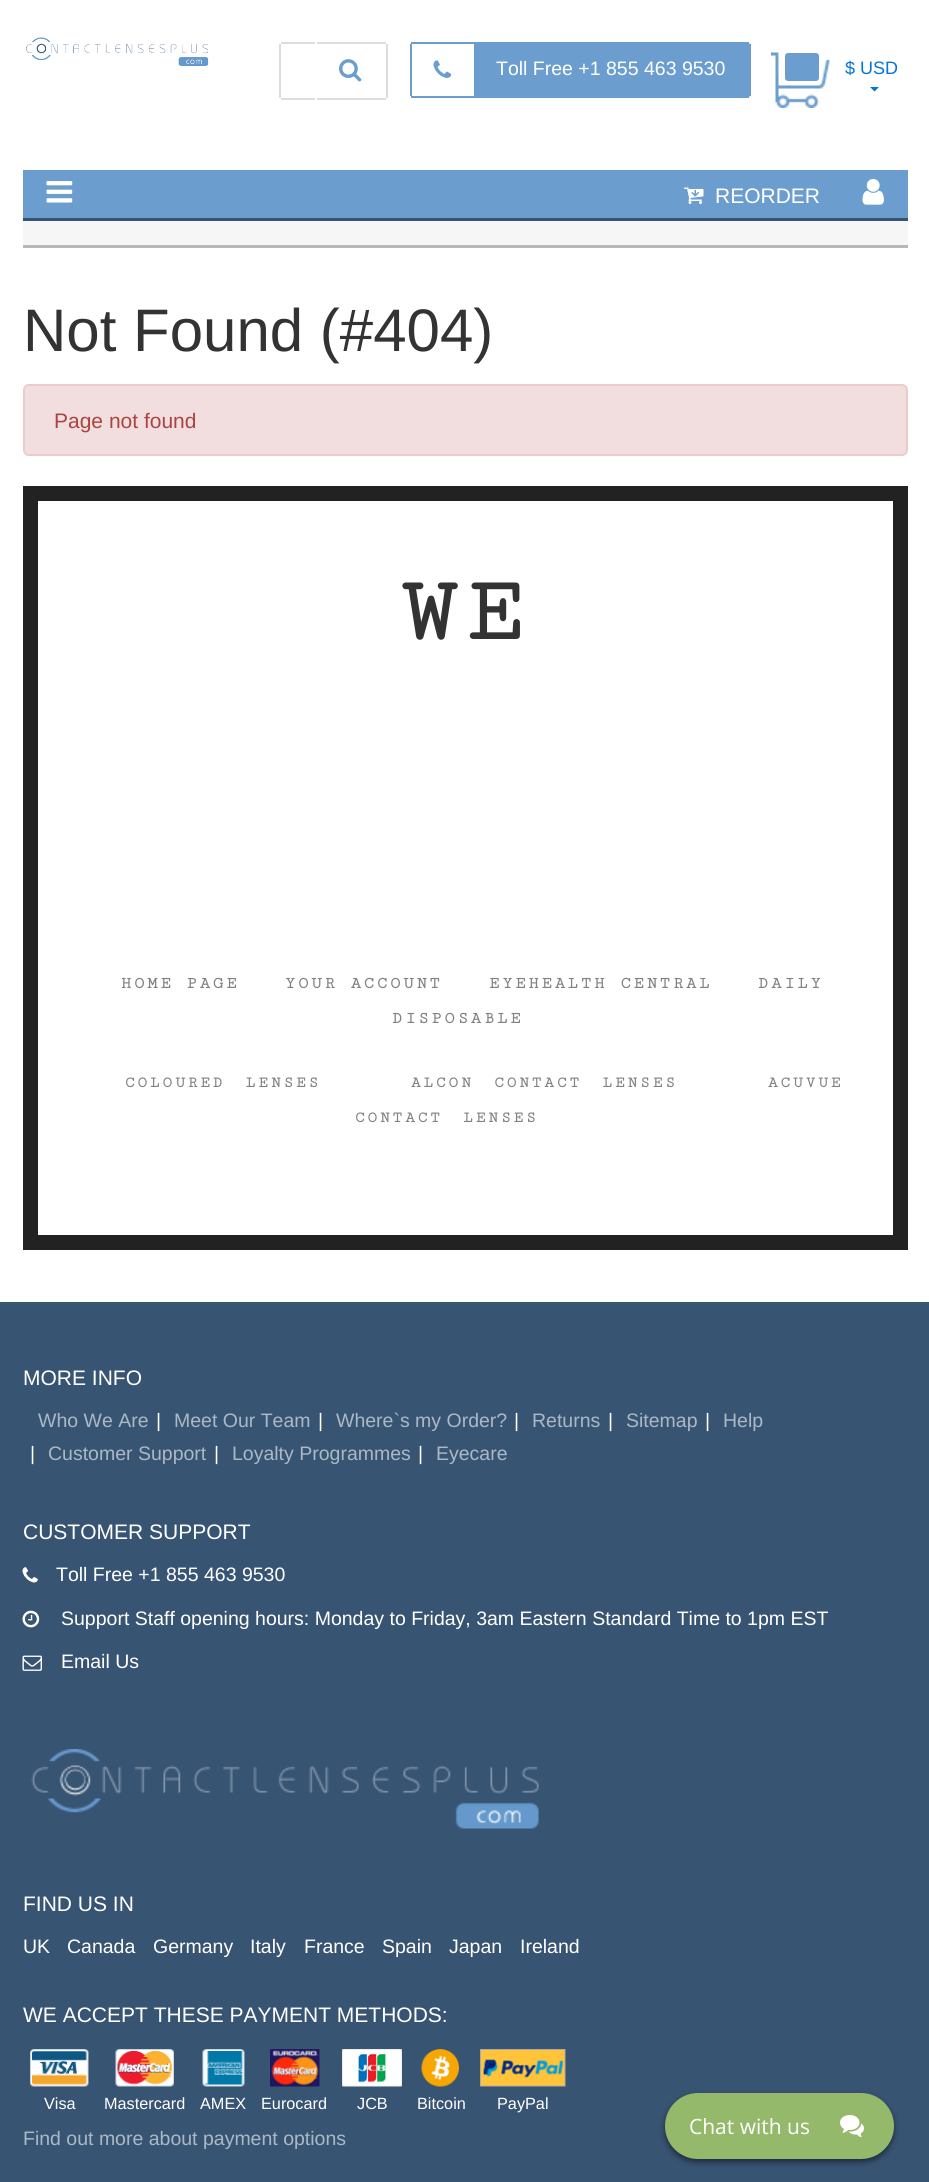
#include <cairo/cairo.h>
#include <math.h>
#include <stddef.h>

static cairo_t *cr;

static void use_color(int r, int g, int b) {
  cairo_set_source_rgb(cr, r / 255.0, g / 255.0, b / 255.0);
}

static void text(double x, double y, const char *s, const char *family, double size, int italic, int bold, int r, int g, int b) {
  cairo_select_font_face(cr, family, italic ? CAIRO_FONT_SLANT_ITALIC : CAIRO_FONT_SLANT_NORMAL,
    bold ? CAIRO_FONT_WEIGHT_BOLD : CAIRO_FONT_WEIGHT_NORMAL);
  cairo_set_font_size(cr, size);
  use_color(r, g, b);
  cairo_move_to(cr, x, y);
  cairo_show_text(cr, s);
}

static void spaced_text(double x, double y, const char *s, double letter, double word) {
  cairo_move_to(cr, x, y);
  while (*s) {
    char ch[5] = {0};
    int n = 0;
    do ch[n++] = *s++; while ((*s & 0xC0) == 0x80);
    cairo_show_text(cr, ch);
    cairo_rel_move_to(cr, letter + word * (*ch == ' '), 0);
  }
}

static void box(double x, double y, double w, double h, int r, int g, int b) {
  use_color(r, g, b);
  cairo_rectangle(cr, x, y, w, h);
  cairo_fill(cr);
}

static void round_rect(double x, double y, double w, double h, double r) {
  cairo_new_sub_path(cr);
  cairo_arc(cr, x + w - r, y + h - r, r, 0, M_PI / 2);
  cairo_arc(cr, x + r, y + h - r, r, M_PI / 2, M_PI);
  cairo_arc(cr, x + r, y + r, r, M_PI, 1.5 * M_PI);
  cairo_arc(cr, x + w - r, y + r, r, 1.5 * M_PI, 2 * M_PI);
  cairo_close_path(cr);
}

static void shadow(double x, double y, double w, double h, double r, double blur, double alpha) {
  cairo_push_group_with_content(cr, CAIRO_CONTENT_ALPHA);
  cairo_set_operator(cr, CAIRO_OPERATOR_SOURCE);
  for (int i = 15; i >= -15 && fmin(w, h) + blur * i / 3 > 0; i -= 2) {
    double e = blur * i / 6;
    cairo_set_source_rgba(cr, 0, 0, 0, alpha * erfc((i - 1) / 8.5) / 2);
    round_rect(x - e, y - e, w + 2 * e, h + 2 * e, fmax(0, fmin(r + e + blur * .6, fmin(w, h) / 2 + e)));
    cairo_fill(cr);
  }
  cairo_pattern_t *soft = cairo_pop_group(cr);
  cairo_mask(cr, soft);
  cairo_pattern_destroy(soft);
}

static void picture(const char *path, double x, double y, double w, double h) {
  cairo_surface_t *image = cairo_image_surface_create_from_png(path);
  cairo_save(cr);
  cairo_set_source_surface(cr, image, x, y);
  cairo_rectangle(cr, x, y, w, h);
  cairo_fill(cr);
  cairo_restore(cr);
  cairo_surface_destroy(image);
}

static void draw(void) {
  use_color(255, 255, 255);
  cairo_paint(cr);
  picture("img_01.png", 26, 37, 183, 29);
  box(281, 42, 34, 2, 221, 221, 221);
  box(281, 98, 34, 2, 221, 221, 221);
  box(279, 44, 2, 54, 221, 221, 221);
  box(317, 42, 69, 2, 221, 221, 221);
  box(386, 44, 2, 54, 221, 221, 221);
  box(317, 98, 69, 2, 221, 221, 221);
  picture("img_02.png", 339, 59, 23, 23);
  box(411, 42, 63, 2, 107, 157, 206);
  box(411, 96, 63, 2, 107, 157, 206);
  box(410, 44, 2, 52, 107, 157, 206);
  picture("img_03.png", 433, 60, 19, 18);
  cairo_new_path(cr);
  cairo_move_to(cr, 474, 42);
  cairo_line_to(cr, 747, 42);
  cairo_curve_to(cr, 748.5, 42, 750, 43.5, 750, 45);
  cairo_line_to(cr, 750, 95);
  cairo_curve_to(cr, 750, 96.5, 748.5, 98, 747, 98);
  cairo_line_to(cr, 474, 98);
  cairo_close_path(cr);
  cairo_fill(cr);
  box(747, 42, 2, 1, 107, 157, 206);
  box(749, 44, 2, 52, 107, 157, 206);
  box(747, 97, 2, 1, 107, 157, 206);
  picture("img_04.png", 771, 52, 59, 56);
  round_rect(785, 53, 34, 28, 3);
  cairo_fill(cr);
  use_color(2, 117, 216);
  cairo_new_path(cr);
  cairo_move_to(cr, 870, 87);
  cairo_line_to(cr, 879, 87);
  cairo_line_to(cr, 874.5, 91.5);
  cairo_close_path(cr);
  cairo_fill(cr);
  box(23, 170, 885, 48, 107, 157, 206);
  box(23, 218, 885, 3, 56, 84, 115);
  picture("img_05.png", 46, 181, 27, 22);
  picture("img_06.png", 684, 187, 20, 17);
  picture("img_07.png", 862, 178, 22, 27);
  box(23, 221, 885, 24, 246, 246, 246);
  box(23, 245, 885, 3, 184, 184, 184);
  use_color(242, 222, 222);
  round_rect(24, 385, 883, 70, 5);
  cairo_fill_preserve(cr);
  use_color(235, 204, 204);
  cairo_stroke(cr);
  cairo_rectangle(cr, 30.5, 493.5, 870, 749);
  use_color(34, 34, 34);
  cairo_set_line_width(cr, 15);
  cairo_stroke(cr);
  box(0, 1302, 929, 880, 56, 84, 115);
  picture("img_08.png", 22, 1567, 16, 16);
  picture("img_09.png", 22, 1610, 18, 18);
  picture("img_10.png", 22, 1655, 20, 16);
  picture("img_11.png", 31, 1749, 508, 80);
  picture("img_12.png", 30, 2049, 59, 38);
  picture("img_13.png", 115, 2049, 59, 38);
  picture("img_14.png", 202, 2049, 43, 38);
  picture("img_15.png", 270, 2049, 50, 38);
  picture("img_16.png", 342, 2049, 60, 38);
  picture("img_17.png", 421, 2049, 38, 38);
  picture("img_18.png", 480, 2049, 86, 38);
  use_color(0, 0, 0);
  shadow(665, 2096, 229, 66, 33, 3, 0.5);
  use_color(149, 185, 107);
  round_rect(665, 2093, 229, 66, 33);
  cairo_fill(cr);
  picture("img_19.png", 840, 2115, 24, 23);
  text(496, 75, "Toll Free +1 855 463 9530", "Liberation Sans", 19.5, 0, 0, 255, 255, 255);
  text(845, 74, "$ USD", "Liberation Sans", 18, 0, 0, 2, 117, 216);
  text(715, 203, "REORDER", "Liberation Sans", 21, 0, 0, 255, 255, 255);
  text(23, 351, "Not Found (#404)", "Liberation Sans", 60, 0, 0, 51, 51, 51);
  text(54, 428, "Page not found", "Liberation Sans", 21, 0, 0, 169, 68, 66);
  cairo_select_font_face(cr, "Cutive Mono", CAIRO_FONT_SLANT_NORMAL, CAIRO_FONT_WEIGHT_BOLD);
  cairo_set_font_size(cr, 94);
  use_color(51, 51, 51);
  spaced_text(400, 639, "WE", 8, 0);
  cairo_set_font_size(cr, 16.75);
  use_color(130, 130, 130);
  spaced_text(121, 988, "HOME PAGE", 3, 0);
  spaced_text(285, 988, "YOUR ACCOUNT", 3, 0);
  spaced_text(489, 988, "EYEHEALTH CENTRAL", 3, 0);
  spaced_text(758, 988, "DAILY", 3, 0);
  spaced_text(392, 1023, "DISPOSABLE", 3, 0);
  cairo_set_font_size(cr, 15.75);
  spaced_text(125, 1087, "COLOURED LENSES", 3, 8);
  spaced_text(411, 1087, "ALCON CONTACT LENSES", 3, 8);
  spaced_text(768, 1087, "ACUVUE", 3, 0);
  spaced_text(355, 1122, "CONTACT LENSES", 3, 8);
  text(23, 1385, "MORE INFO", "Liberation Sans", 21, 0, 0, 255, 255, 255);
  text(38, 1427, "Who We Are", "Liberation Sans", 19.5, 0, 0, 171, 184, 197);
  text(156, 1427, "|", "Liberation Sans", 19.5, 0, 0, 255, 255, 255);
  text(174, 1427, "Meet Our Team", "Liberation Sans", 19.5, 0, 0, 171, 184, 197);
  text(318, 1427, "|", "Liberation Sans", 19.5, 0, 0, 255, 255, 255);
  text(336, 1427, "Where`s my Order?", "Liberation Sans", 19.5, 0, 0, 171, 184, 197);
  text(514, 1427, "|", "Liberation Sans", 19.5, 0, 0, 255, 255, 255);
  text(532, 1427, "Returns", "Liberation Sans", 19.5, 0, 0, 171, 184, 197);
  text(608, 1427, "|", "Liberation Sans", 19.5, 0, 0, 255, 255, 255);
  text(626, 1427, "Sitemap", "Liberation Sans", 19.5, 0, 0, 171, 184, 197);
  text(705, 1427, "|", "Liberation Sans", 19.5, 0, 0, 255, 255, 255);
  text(723, 1427, "Help", "Liberation Sans", 19.5, 0, 0, 171, 184, 197);
  text(30, 1460, "|", "Liberation Sans", 19.5, 0, 0, 255, 255, 255);
  text(48, 1460, "Customer Support", "Liberation Sans", 19.5, 0, 0, 171, 184, 197);
  text(214, 1460, "|", "Liberation Sans", 19.5, 0, 0, 255, 255, 255);
  text(232, 1460, "Loyalty Programmes", "Liberation Sans", 19.5, 0, 0, 171, 184, 197);
  text(418, 1460, "|", "Liberation Sans", 19.5, 0, 0, 255, 255, 255);
  text(436, 1460, "Eyecare", "Liberation Sans", 19.5, 0, 0, 171, 184, 197);
  text(23, 1539, "CUSTOMER SUPPORT", "Liberation Sans", 21, 0, 0, 255, 255, 255);
  text(56, 1581, "Toll Free +1 855 463 9530", "Liberation Sans", 19.5, 0, 0, 255, 255, 255);
  text(61, 1625, "Support Staff opening hours: Monday to Friday, 3am Eastern Standard Time to 1pm EST", "Liberation Sans", 19.5, 0, 0, 255, 255, 255);
  text(61, 1668, "Email Us", "Liberation Sans", 19.5, 0, 0, 255, 255, 255);
  text(23, 1911, "FIND US IN", "Liberation Sans", 21, 0, 0, 255, 255, 255);
  text(23, 1953, "UK", "Liberation Sans", 19.5, 0, 0, 255, 255, 255);
  text(67, 1953, "Canada", "Liberation Sans", 19.5, 0, 0, 255, 255, 255);
  text(153, 1953, "Germany", "Liberation Sans", 19.5, 0, 0, 255, 255, 255);
  text(250, 1953, "Italy", "Liberation Sans", 19.5, 0, 0, 255, 255, 255);
  text(304, 1953, "France", "Liberation Sans", 19.5, 0, 0, 255, 255, 255);
  text(382, 1953, "Spain", "Liberation Sans", 19.5, 0, 0, 255, 255, 255);
  text(449, 1953, "Japan", "Liberation Sans", 19.5, 0, 0, 255, 255, 255);
  text(520, 1953, "Ireland", "Liberation Sans", 19.5, 0, 0, 255, 255, 255);
  text(23, 2022, "WE ACCEPT THESE PAYMENT METHODS:", "Liberation Sans", 21, 0, 0, 255, 255, 255);
  text(44, 2109, "Visa", "Liberation Sans", 16.25, 0, 0, 255, 255, 255);
  text(104, 2109, "Mastercard", "Liberation Sans", 16.25, 0, 0, 255, 255, 255);
  text(200, 2109, "AMEX", "Liberation Sans", 16.25, 0, 0, 255, 255, 255);
  text(261, 2109, "Eurocard", "Liberation Sans", 16.25, 0, 0, 255, 255, 255);
  text(357, 2109, "JCB", "Liberation Sans", 16.25, 0, 0, 255, 255, 255);
  text(417, 2109, "Bitcoin", "Liberation Sans", 16.25, 0, 0, 255, 255, 255);
  text(497, 2109, "PayPal", "Liberation Sans", 16.25, 0, 0, 255, 255, 255);
  text(23, 2145, "Find out more about payment options", "Liberation Sans", 19.5, 0, 0, 171, 184, 197);
  text(689, 2134, "Chat with us", "Open Sans", 21, 0, 0, 255, 255, 255);
}

int main(void) {
  cairo_surface_t *surface = cairo_image_surface_create(CAIRO_FORMAT_RGB24, 929, 2182);
  cr = cairo_create(surface);
  cairo_font_options_t *options = cairo_font_options_create();
  cairo_font_options_set_hint_metrics(options, CAIRO_HINT_METRICS_OFF);
  cairo_font_options_set_hint_style(options, CAIRO_HINT_STYLE_NONE);
  cairo_set_font_options(cr, options);
  cairo_set_miter_limit(cr, 4);
  draw();
  cairo_surface_write_to_png(surface, "out.png");
  cairo_font_options_destroy(options);
  cairo_destroy(cr);
  cairo_surface_destroy(surface);
  return 0;
}
